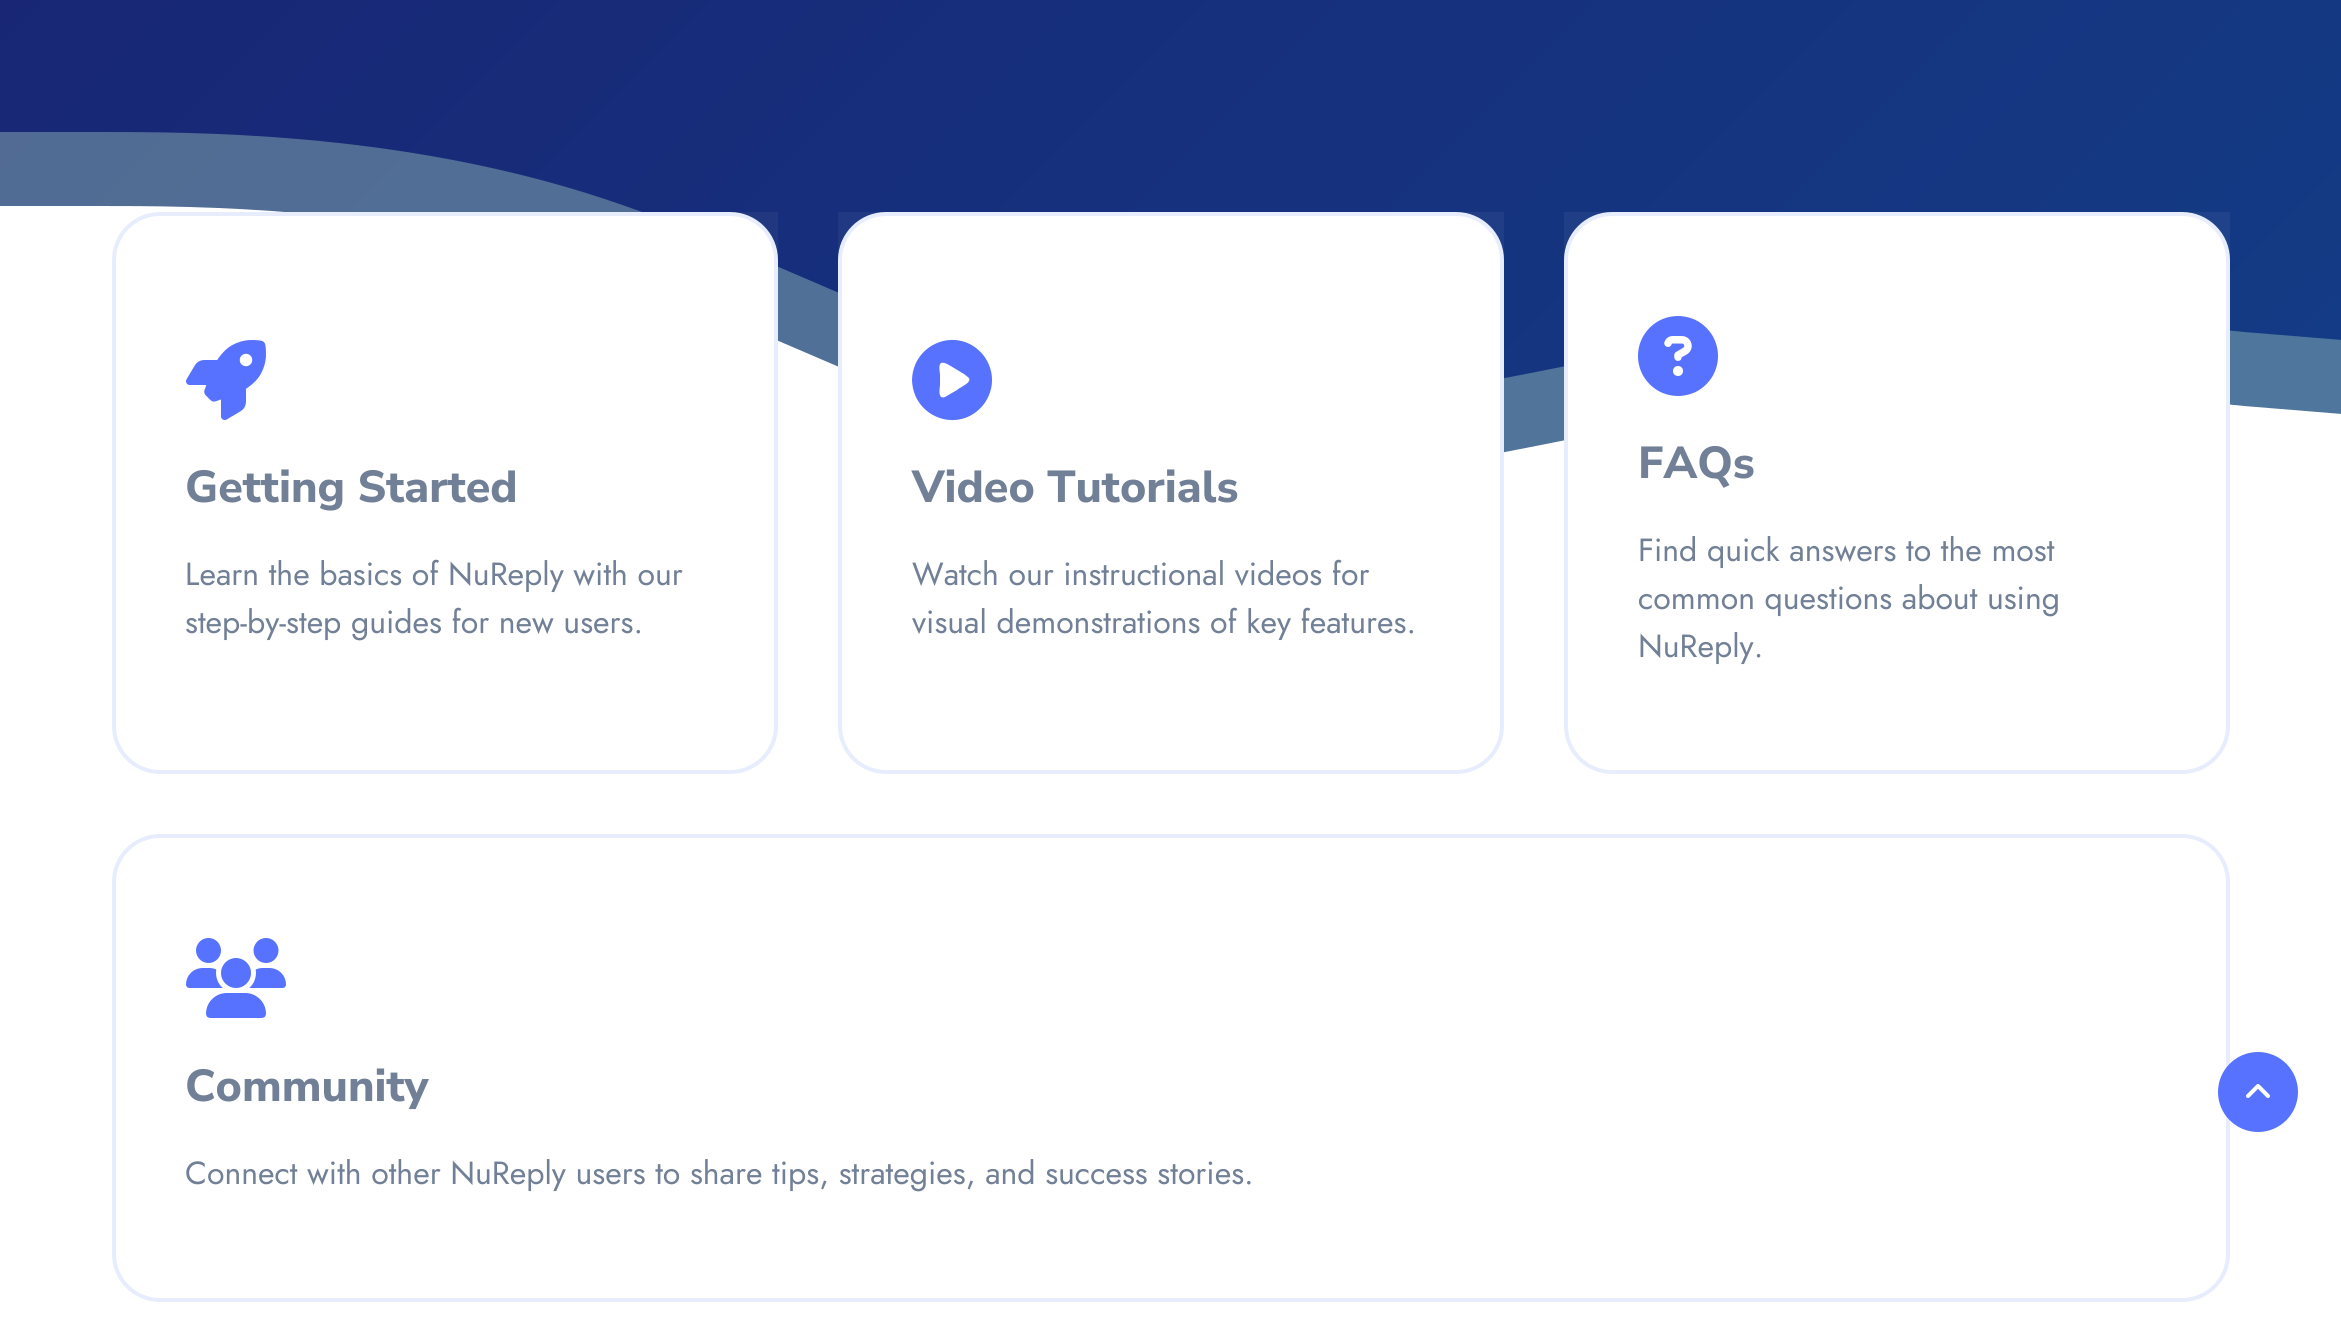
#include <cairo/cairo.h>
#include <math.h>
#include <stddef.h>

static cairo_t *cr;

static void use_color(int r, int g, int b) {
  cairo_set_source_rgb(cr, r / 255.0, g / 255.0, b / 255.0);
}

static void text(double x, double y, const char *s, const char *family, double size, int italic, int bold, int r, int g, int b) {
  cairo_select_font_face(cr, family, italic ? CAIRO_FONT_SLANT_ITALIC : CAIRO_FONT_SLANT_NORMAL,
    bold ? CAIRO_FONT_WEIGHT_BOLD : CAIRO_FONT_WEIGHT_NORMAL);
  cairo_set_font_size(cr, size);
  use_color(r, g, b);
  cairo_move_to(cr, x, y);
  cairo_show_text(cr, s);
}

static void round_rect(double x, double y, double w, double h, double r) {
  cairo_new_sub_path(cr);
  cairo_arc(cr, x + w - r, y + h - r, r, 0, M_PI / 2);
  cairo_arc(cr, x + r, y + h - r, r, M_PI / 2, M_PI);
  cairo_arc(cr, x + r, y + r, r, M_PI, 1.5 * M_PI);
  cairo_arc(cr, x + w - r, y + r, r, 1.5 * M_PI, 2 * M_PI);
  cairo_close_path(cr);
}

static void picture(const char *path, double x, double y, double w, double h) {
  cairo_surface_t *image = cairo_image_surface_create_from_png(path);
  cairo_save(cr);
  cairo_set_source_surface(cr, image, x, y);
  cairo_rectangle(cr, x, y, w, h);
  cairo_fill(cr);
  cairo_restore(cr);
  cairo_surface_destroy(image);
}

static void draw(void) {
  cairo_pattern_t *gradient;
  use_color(255, 255, 255);
  cairo_paint(cr);
  gradient = cairo_pattern_create_linear(237, -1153, 2105, 714);
  cairo_pattern_add_color_stop_rgba(gradient, 0, 0.098, 0.122, 0.439, 1);
  cairo_pattern_add_color_stop_rgba(gradient, 1, 0.078, 0.235, 0.525, 1);
  cairo_set_source(cr, gradient);
  cairo_pattern_destroy(gradient);
  cairo_rectangle(cr, 0, 0, 2341, 453);
  cairo_fill(cr);
  cairo_save(cr);
  cairo_rectangle(cr, 0, 28, 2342, 448);
  cairo_clip(cr);
  cairo_set_source_rgba(cr, 0.655, 0.827, 0.761, 0.4);
  cairo_new_path(cr);
  cairo_move_to(cr, 0, 132);
  cairo_line_to(cr, 98, 132);
  cairo_curve_to(cr, 195, 132, 390, 132, 586, 193);
  cairo_curve_to(cr, 781, 254, 976, 374, 1171, 401);
  cairo_curve_to(cr, 1366, 426, 1561, 358, 1756, 332);
  cairo_curve_to(cr, 1952, 306, 2147, 322, 2244, 332);
  cairo_line_to(cr, 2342, 340);
  cairo_line_to(cr, 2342, 548);
  cairo_line_to(cr, 0, 548);
  cairo_close_path(cr);
  cairo_fill(cr);
  cairo_restore(cr);
  cairo_save(cr);
  cairo_rectangle(cr, 0, 102, 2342, 406);
  cairo_clip(cr);
  use_color(255, 255, 255);
  cairo_new_path(cr);
  cairo_move_to(cr, 0, 206);
  cairo_line_to(cr, 98, 206);
  cairo_curve_to(cr, 195, 206, 390, 206, 586, 267);
  cairo_curve_to(cr, 781, 328, 976, 448, 1171, 475);
  cairo_curve_to(cr, 1366, 500, 1561, 432, 1756, 406);
  cairo_curve_to(cr, 1952, 380, 2147, 396, 2244, 406);
  cairo_line_to(cr, 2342, 414);
  cairo_line_to(cr, 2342, 622);
  cairo_line_to(cr, 0, 622);
  cairo_close_path(cr);
  cairo_fill(cr);
  cairo_restore(cr);
  cairo_set_source_rgba(cr, 1, 1, 1, 0.05);
  cairo_rectangle(cr, 288, 212, 490, 129);
  cairo_fill(cr);
  use_color(255, 255, 255);
  round_rect(114, 214, 662, 558, 46);
  cairo_fill_preserve(cr);
  use_color(231, 237, 252);
  cairo_set_line_width(cr, 4);
  cairo_stroke(cr);
  picture("img_01.png", 186, 340, 80, 80);
  cairo_set_source_rgba(cr, 1, 1, 1, 0.05);
  cairo_rectangle(cr, 838, 212, 666, 241);
  cairo_fill(cr);
  use_color(255, 255, 255);
  round_rect(840, 214, 662, 558, 46);
  cairo_fill_preserve(cr);
  use_color(231, 237, 252);
  cairo_stroke(cr);
  use_color(87, 114, 254);
  cairo_new_path(cr);
  cairo_move_to(cr, 912, 380);
  cairo_curve_to(cr, 913, 342, 960, 325, 984, 356);
  cairo_curve_to(cr, 989, 363, 992, 371, 992, 380);
  cairo_curve_to(cr, 992, 389, 989, 397, 984, 404);
  cairo_curve_to(cr, 960, 435, 913, 418, 912, 380);
  cairo_close_path(cr);
  cairo_move_to(cr, 941, 363);
  cairo_curve_to(cr, 938, 365, 940, 372, 940, 375);
  cairo_line_to(cr, 940, 385);
  cairo_curve_to(cr, 940, 387, 937, 400, 945, 397);
  cairo_line_to(cr, 957, 390);
  cairo_curve_to(cr, 959, 388, 968, 384, 969, 381);
  cairo_curve_to(cr, 971, 378, 966, 376, 964, 374);
  cairo_line_to(cr, 949, 365);
  cairo_curve_to(cr, 947, 364, 944, 362, 941, 363);
  cairo_close_path(cr);
  cairo_fill(cr);
  cairo_set_source_rgba(cr, 1, 1, 1, 0.05);
  cairo_rectangle(cr, 1564, 212, 666, 229);
  cairo_fill(cr);
  use_color(255, 255, 255);
  round_rect(1566, 214, 662, 558, 46);
  cairo_fill_preserve(cr);
  use_color(231, 237, 252);
  cairo_stroke(cr);
  picture("img_02.png", 1638, 316, 80, 80);
  round_rect(114, 836, 2114, 464, 46);
  cairo_stroke(cr);
  picture("img_03.png", 186, 938, 100, 80);
  use_color(87, 114, 254);
  cairo_arc(cr, 2258, 1092, 39, 0, 2 * M_PI);
  cairo_fill_preserve(cr);
  cairo_set_line_width(cr, 2);
  cairo_stroke(cr);
  picture("img_04.png", 2246, 1084, 24, 14);
  text(185, 502, "Getting Started", "Nunito Sans ExtraBold", 44.75, 0, 0, 113, 128, 150);
  text(185, 585, "Learn the basics of NuReply with our", "Jost", 32, 0, 0, 113, 128, 150);
  text(185, 633, "step-by-step guides for new users.", "Jost", 32, 0, 0, 113, 128, 150);
  text(912, 502, "Video Tutorials", "Nunito Sans ExtraBold", 44.75, 0, 0, 113, 128, 150);
  text(912, 585, "Watch our instructional videos for", "Jost", 32, 0, 0, 113, 128, 150);
  text(912, 633, "visual demonstrations of key features.", "Jost", 32, 0, 0, 113, 128, 150);
  text(1638, 478, "FAQs", "Nunito Sans ExtraBold", 44.75, 0, 0, 113, 128, 150);
  text(1638, 561, "Find quick answers to the most", "Jost", 32, 0, 0, 113, 128, 150);
  text(1638, 609, "common questions about using", "Jost", 32, 0, 0, 113, 128, 150);
  text(1638, 657, "NuReply.", "Jost", 32, 0, 0, 113, 128, 150);
  text(185, 1101, "Community", "Nunito Sans ExtraBold", 44.75, 0, 0, 113, 128, 150);
  text(185, 1184, "Connect with other NuReply users to share tips, strategies, and success stories.", "Jost", 32, 0, 0, 113, 128, 150);
}

int main(void) {
  cairo_surface_t *surface = cairo_image_surface_create(CAIRO_FORMAT_RGB24, 2341, 1336);
  cr = cairo_create(surface);
  cairo_font_options_t *options = cairo_font_options_create();
  cairo_font_options_set_hint_metrics(options, CAIRO_HINT_METRICS_OFF);
  cairo_font_options_set_hint_style(options, CAIRO_HINT_STYLE_NONE);
  cairo_set_font_options(cr, options);
  cairo_set_miter_limit(cr, 4);
  draw();
  cairo_surface_write_to_png(surface, "out.png");
  cairo_font_options_destroy(options);
  cairo_destroy(cr);
  cairo_surface_destroy(surface);
  return 0;
}
